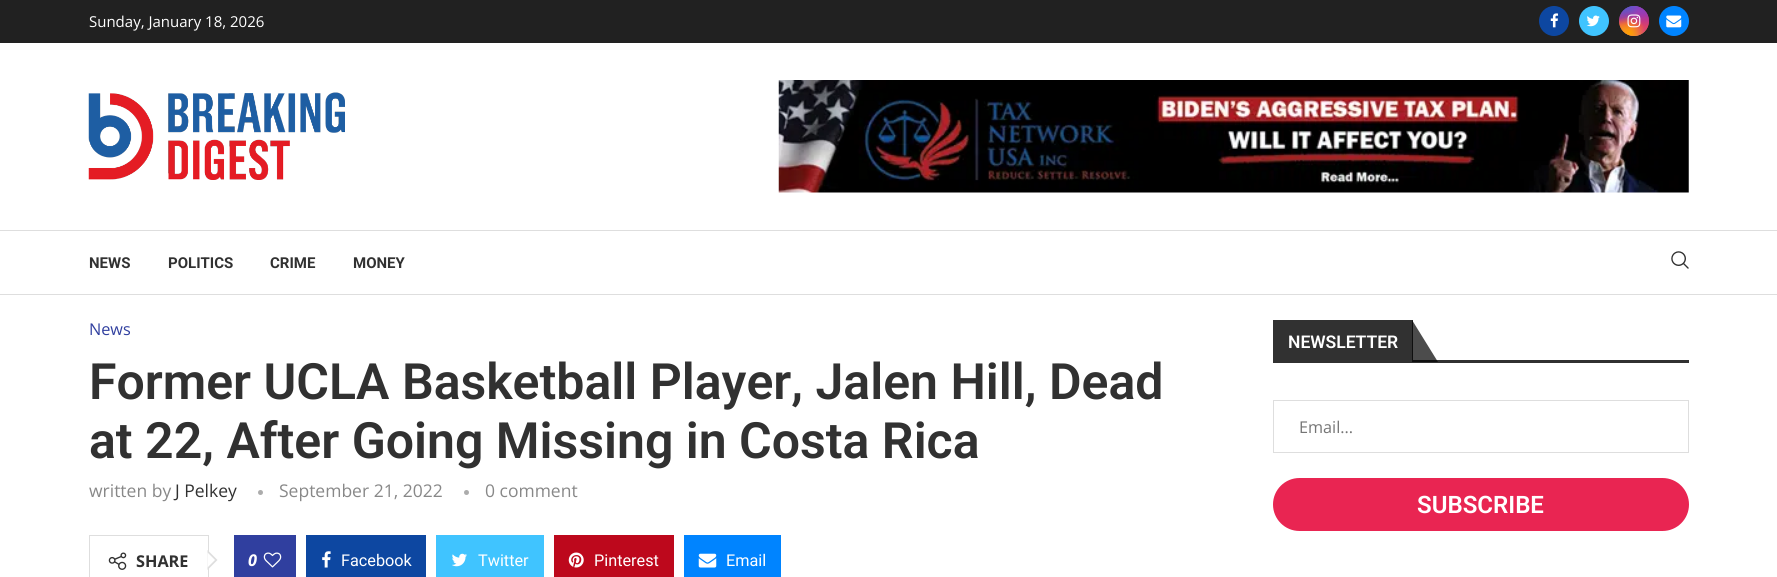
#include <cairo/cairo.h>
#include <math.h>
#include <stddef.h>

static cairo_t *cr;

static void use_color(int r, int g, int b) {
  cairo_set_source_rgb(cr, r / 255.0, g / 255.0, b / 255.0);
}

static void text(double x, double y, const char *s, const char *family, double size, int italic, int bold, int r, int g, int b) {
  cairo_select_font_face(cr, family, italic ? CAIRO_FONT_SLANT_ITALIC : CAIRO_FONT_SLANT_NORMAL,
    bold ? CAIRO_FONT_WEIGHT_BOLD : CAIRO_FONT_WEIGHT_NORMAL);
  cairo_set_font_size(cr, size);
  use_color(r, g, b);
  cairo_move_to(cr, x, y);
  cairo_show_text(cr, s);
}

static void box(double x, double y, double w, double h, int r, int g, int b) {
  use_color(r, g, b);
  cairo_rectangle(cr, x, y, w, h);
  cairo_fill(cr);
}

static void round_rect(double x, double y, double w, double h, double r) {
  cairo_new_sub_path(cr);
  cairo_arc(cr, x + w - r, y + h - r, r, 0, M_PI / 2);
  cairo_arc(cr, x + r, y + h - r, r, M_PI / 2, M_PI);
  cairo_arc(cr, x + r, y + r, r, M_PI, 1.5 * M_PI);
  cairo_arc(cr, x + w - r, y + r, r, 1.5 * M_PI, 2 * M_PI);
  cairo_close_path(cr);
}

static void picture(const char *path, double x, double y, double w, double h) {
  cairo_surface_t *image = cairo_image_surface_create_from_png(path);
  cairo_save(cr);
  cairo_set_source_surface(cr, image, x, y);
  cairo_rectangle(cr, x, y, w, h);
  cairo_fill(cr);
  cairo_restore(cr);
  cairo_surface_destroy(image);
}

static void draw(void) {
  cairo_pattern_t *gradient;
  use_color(255, 255, 255);
  cairo_paint(cr);
  box(0, 0, 1777, 43, 33, 33, 33);
  use_color(13, 71, 161);
  cairo_arc(cr, 1554, 21, 15, 0, 2 * M_PI);
  cairo_fill(cr);
  picture("img_01.png", 1550, 13, 9, 15);
  use_color(64, 196, 255);
  cairo_arc(cr, 1594, 21, 15, 0, 2 * M_PI);
  cairo_fill(cr);
  picture("img_02.png", 1586, 15, 14, 12);
  gradient = cairo_pattern_create_linear(1634, 6.2, 1634, 36);
  cairo_pattern_add_color_stop_rgba(gradient, 0, 0.396, 0.349, 0.792, 1);
  cairo_pattern_add_color_stop_rgba(gradient, 0.3, 0.737, 0.192, 0.561, 1);
  cairo_pattern_add_color_stop_rgba(gradient, 0.5, 0.89, 0.247, 0.373, 1);
  cairo_pattern_add_color_stop_rgba(gradient, 0.7, 0.969, 0.463, 0.22, 1);
  cairo_pattern_add_color_stop_rgba(gradient, 1, 0.996, 0.776, 0.427, 1);
  cairo_set_source(cr, gradient);
  cairo_pattern_destroy(gradient);
  cairo_arc(cr, 1634, 21, 15, 0, 2 * M_PI);
  cairo_fill(cr);
  gradient = cairo_pattern_create_radial(1649, 36, 0, 1649, 36, 42);
  cairo_pattern_add_color_stop_rgba(gradient, 0, 0.831, 0.192, 0.471, 1);
  cairo_pattern_add_color_stop_rgba(gradient, 1, 0.831, 0.192, 0.471, 0);
  cairo_set_source(cr, gradient);
  cairo_pattern_destroy(gradient);
  cairo_arc(cr, 1634, 21, 15, 0, 2 * M_PI);
  cairo_fill(cr);
  gradient = cairo_pattern_create_radial(0, 0, 0, 0, 0, 1);
  cairo_pattern_set_matrix(gradient, &(cairo_matrix_t){1.0 / 25, 0, 0, 1.0 / 51, -1.0 * 1637 / 25, -1.0 * 0.2 / 51});
  cairo_pattern_add_color_stop_rgba(gradient, 0, 0.561, 0.267, 0.78, 1);
  cairo_pattern_add_color_stop_rgba(gradient, 0.5, 0.561, 0.267, 0.78, 0);
  cairo_set_source(cr, gradient);
  cairo_pattern_destroy(gradient);
  cairo_arc(cr, 1634, 21, 15, 0, 2 * M_PI);
  cairo_fill(cr);
  gradient = cairo_pattern_create_radial(1649, 6.2, 0, 1649, 6.2, 42);
  cairo_pattern_add_color_stop_rgba(gradient, 0, 0.537, 0.239, 0.761, 1);
  cairo_pattern_add_color_stop_rgba(gradient, 0.5, 0.537, 0.239, 0.761, 0);
  cairo_set_source(cr, gradient);
  cairo_pattern_destroy(gradient);
  cairo_arc(cr, 1634, 21, 15, 0, 2 * M_PI);
  cairo_fill(cr);
  gradient = cairo_pattern_create_radial(0, 0, 0, 0, 0, 1);
  cairo_pattern_set_matrix(gradient, &(cairo_matrix_t){1.0 / 34, 0, 0, 1.0 / 64, -1.0 * 1625 / 34, -1.0 * -9 / 64});
  cairo_pattern_add_color_stop_rgba(gradient, 0, 0.322, 0.345, 0.812, 1);
  cairo_pattern_add_color_stop_rgba(gradient, 0.5, 0.322, 0.345, 0.812, 0);
  cairo_set_source(cr, gradient);
  cairo_pattern_destroy(gradient);
  cairo_arc(cr, 1634, 21, 15, 0, 2 * M_PI);
  cairo_fill(cr);
  gradient = cairo_pattern_create_radial(0, 0, 0, 0, 0, 1);
  cairo_pattern_set_matrix(gradient, &(cairo_matrix_t){1.0 / 42, 0, 0, 1.0 / 53, -1.0 * 1619 / 42, -1.0 * -1.2 / 53});
  cairo_pattern_add_color_stop_rgba(gradient, 0, 0.322, 0.345, 0.812, 1);
  cairo_pattern_add_color_stop_rgba(gradient, 0.5, 0.322, 0.345, 0.812, 0);
  cairo_set_source(cr, gradient);
  cairo_pattern_destroy(gradient);
  cairo_arc(cr, 1634, 21, 15, 0, 2 * M_PI);
  cairo_fill(cr);
  gradient = cairo_pattern_create_radial(1619, 48, 0, 1619, 48, 52);
  cairo_pattern_add_color_stop_rgba(gradient, 0, 0.937, 0.631, 0.11, 1);
  cairo_pattern_add_color_stop_rgba(gradient, 0.5, 0.937, 0.631, 0.11, 0);
  cairo_set_source(cr, gradient);
  cairo_pattern_destroy(gradient);
  cairo_arc(cr, 1634, 21, 15, 0, 2 * M_PI);
  cairo_fill(cr);
  gradient = cairo_pattern_create_radial(1629, 33, 0, 1629, 33, 33);
  cairo_pattern_add_color_stop_rgba(gradient, 0, 1, 0.631, 0, 1);
  cairo_pattern_add_color_stop_rgba(gradient, 0.5, 1, 0.631, 0, 0);
  cairo_set_source(cr, gradient);
  cairo_pattern_destroy(gradient);
  cairo_arc(cr, 1634, 21, 15, 0, 2 * M_PI);
  cairo_fill(cr);
  picture("img_03.png", 1627, 14, 14, 14);
  use_color(0, 132, 255);
  cairo_arc(cr, 1674, 21, 15, 0, 2 * M_PI);
  cairo_fill(cr);
  picture("img_04.png", 1666, 15, 16, 13);
  picture("img_05.png", 88, 92, 257, 88);
  picture("img_06.png", 778, 80, 911, 113);
  box(0, 230, 1777, 1, 222, 222, 222);
  box(0, 294, 1777, 1, 222, 222, 222);
  picture("img_07.png", 1671, 251, 18, 18);
  use_color(172, 172, 172);
  cairo_arc(cr, 260.5, 492.5, 2.5, 0, 2 * M_PI);
  cairo_fill(cr);
  cairo_arc(cr, 466.5, 492.5, 2.5, 0, 2 * M_PI);
  cairo_fill(cr);
  cairo_rectangle(cr, 89.5, 535.5, 119, 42);
  use_color(222, 222, 222);
  cairo_set_line_width(cr, 1);
  cairo_stroke(cr);
  picture("img_08.png", 108, 552, 19, 18);
  cairo_new_path(cr);
  cairo_move_to(cr, 207.5, 570);
  cairo_line_to(cr, 207.5, 550);
  cairo_line_to(cr, 217.5, 560);
  cairo_close_path(cr);
  cairo_fill(cr);
  use_color(255, 255, 255);
  cairo_new_path(cr);
  cairo_move_to(cr, 207.5, 567.5);
  cairo_line_to(cr, 207.5, 552.5);
  cairo_line_to(cr, 215, 560);
  cairo_close_path(cr);
  cairo_fill(cr);
  box(234, 535, 62, 42, 48, 63, 159);
  picture("img_09.png", 263, 552, 19, 16);
  box(306, 535, 120, 42, 13, 71, 161);
  picture("img_10.png", 322, 551, 9, 17);
  box(436, 535, 108, 42, 64, 196, 255);
  picture("img_11.png", 452, 553, 15, 14);
  box(554, 535, 120, 42, 189, 8, 28);
  picture("img_12.png", 568, 552, 16, 16);
  box(684, 535, 97, 42, 0, 132, 255);
  picture("img_13.png", 698, 553, 19, 15);
  box(1413, 360, 276, 3, 49, 49, 49);
  box(1273, 320, 140, 43, 49, 49, 49);
  cairo_set_source_rgba(cr, 0, 0, 0, 0.7);
  cairo_new_path(cr);
  cairo_move_to(cr, 1438, 362);
  cairo_line_to(cr, 1412, 362);
  cairo_line_to(cr, 1412, 320);
  cairo_close_path(cr);
  cairo_fill(cr);
  cairo_rectangle(cr, 1273.5, 400.5, 415, 52);
  use_color(222, 222, 222);
  cairo_stroke(cr);
  use_color(233, 37, 82);
  round_rect(1273, 478, 416, 53, 26.5);
  cairo_fill(cr);
  text(89, 27, "Sunday, January 18, 2026", "Open Sans", 15, 0, 0, 255, 255, 255);
  text(89, 268, "NEWS", "Roboto", 15, 0, 1, 49, 49, 49);
  text(168, 268, "POLITICS", "Roboto", 15, 0, 1, 49, 49, 49);
  text(270, 268, "CRIME", "Roboto", 15, 0, 1, 49, 49, 49);
  text(353, 268, "MONEY", "Roboto", 15, 0, 1, 49, 49, 49);
  text(89, 335, "News", "Open Sans", 16.25, 0, 0, 48, 63, 159);
  text(89, 399, "Former UCLA Basketball Player, Jalen Hill, Dead", "Roboto SemiBold", 50, 0, 0, 49, 49, 49);
  text(89, 458, "at 22, After Going Missing in Costa Rica", "Roboto SemiBold", 50, 0, 0, 49, 49, 49);
  text(89, 497, "written by", "Open Sans", 17.5, 0, 0, 136, 136, 136);
  text(175, 497, "J Pelkey", "Open Sans", 17.5, 0, 0, 49, 49, 49);
  text(279, 497, "September 21, 2022", "Open Sans", 17.5, 0, 0, 136, 136, 136);
  text(485, 497, "0 comment", "Open Sans", 17.5, 0, 0, 136, 136, 136);
  text(136, 567, "SHARE", "Open Sans", 16.25, 0, 1, 49, 49, 49);
  text(248, 566, "0", "Open Sans", 16.25, 1, 1, 255, 255, 255);
  text(341, 566, "Facebook", "Roboto", 16.25, 0, 0, 255, 255, 255);
  text(478, 566, "Twitter", "Roboto", 16.25, 0, 0, 255, 255, 255);
  text(594, 566, "Pinterest", "Roboto", 16.25, 0, 0, 255, 255, 255);
  text(726, 566, "Email", "Roboto", 16.25, 0, 0, 255, 255, 255);
  text(1288, 348, "NEWSLETTER", "Roboto SemiBold", 17.5, 0, 0, 255, 255, 255);
  text(1299, 433, "Email...", "Open Sans", 16.25, 0, 0, 117, 117, 117);
  text(1417, 513, "SUBSCRIBE", "Roboto SemiBold", 24, 0, 0, 255, 255, 255);
}

int main(void) {
  cairo_surface_t *surface = cairo_image_surface_create(CAIRO_FORMAT_RGB24, 1777, 577);
  cr = cairo_create(surface);
  cairo_font_options_t *options = cairo_font_options_create();
  cairo_font_options_set_hint_metrics(options, CAIRO_HINT_METRICS_OFF);
  cairo_font_options_set_hint_style(options, CAIRO_HINT_STYLE_NONE);
  cairo_set_font_options(cr, options);
  cairo_set_miter_limit(cr, 4);
  draw();
  cairo_surface_write_to_png(surface, "out.png");
  cairo_font_options_destroy(options);
  cairo_destroy(cr);
  cairo_surface_destroy(surface);
  return 0;
}
